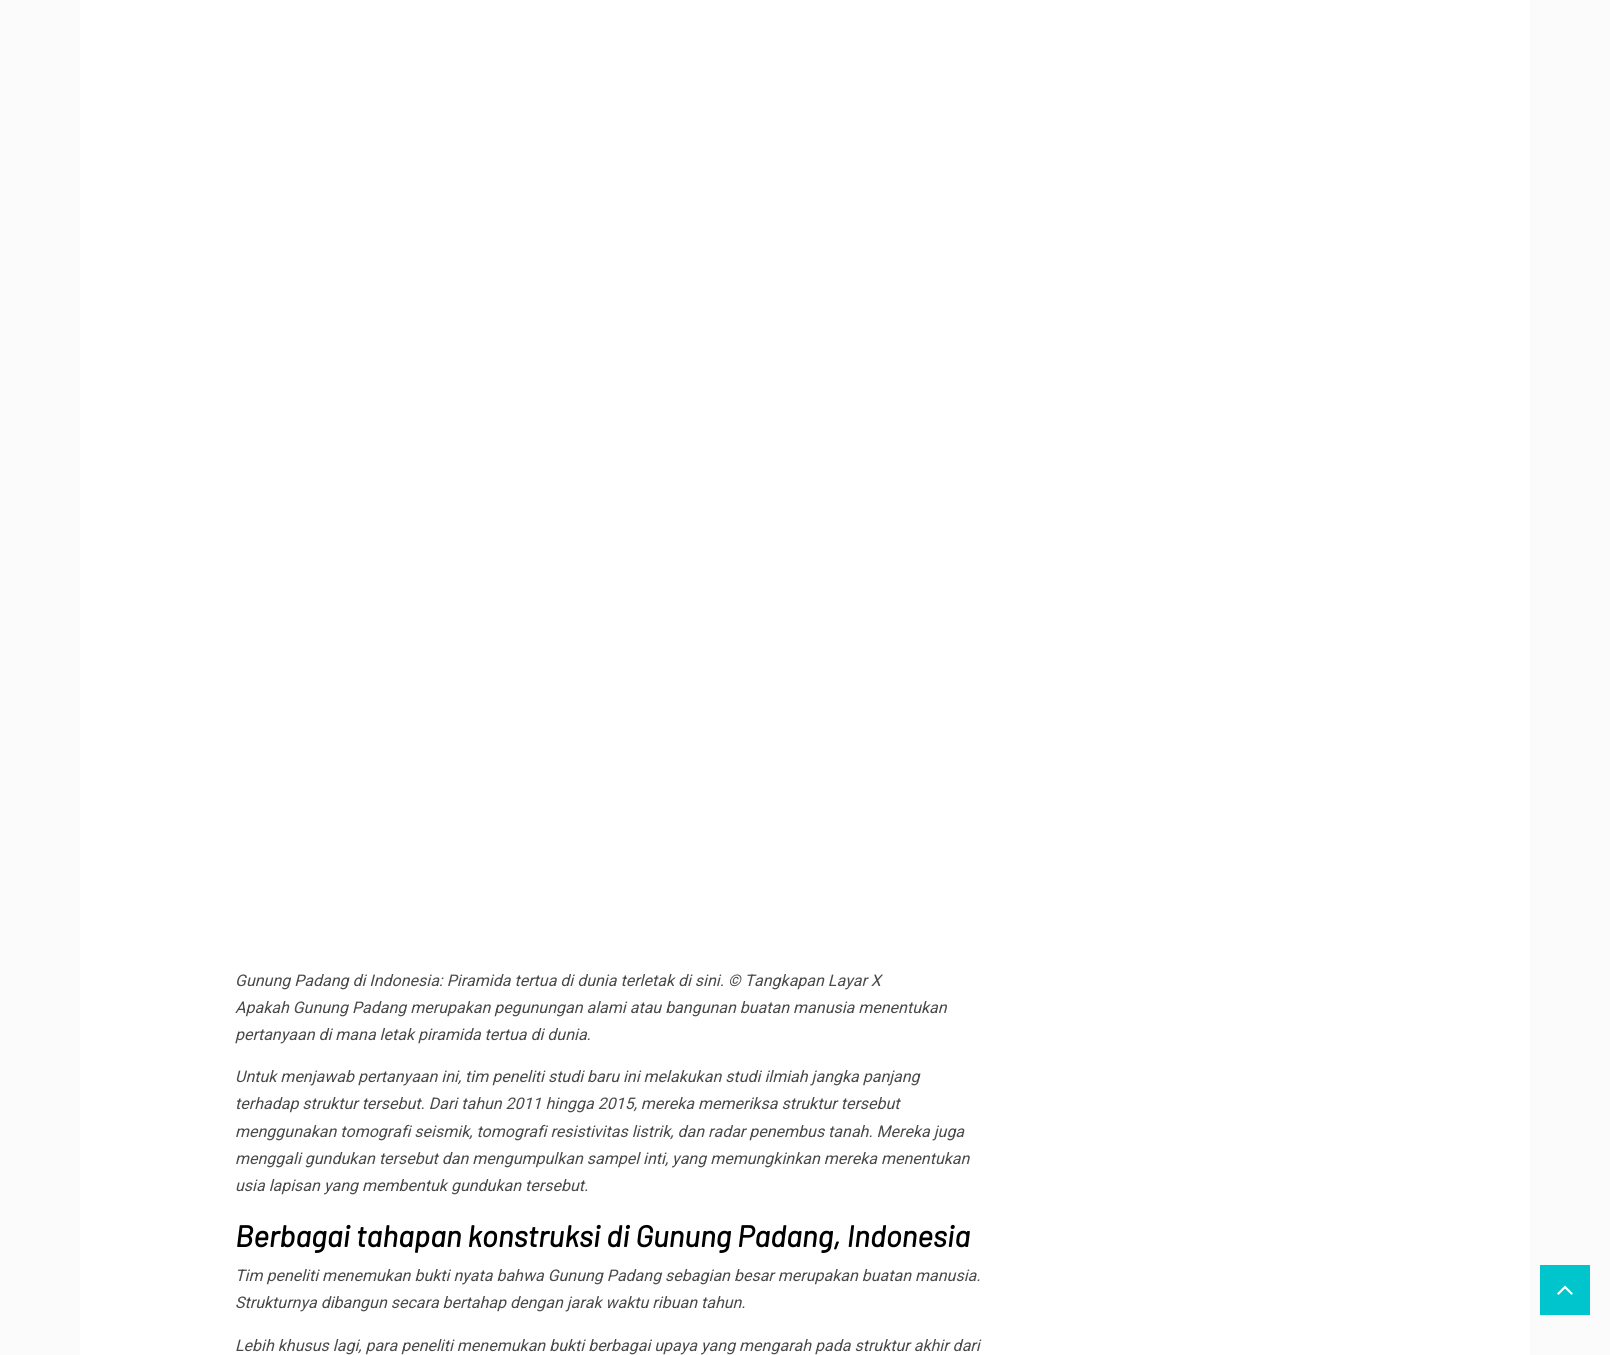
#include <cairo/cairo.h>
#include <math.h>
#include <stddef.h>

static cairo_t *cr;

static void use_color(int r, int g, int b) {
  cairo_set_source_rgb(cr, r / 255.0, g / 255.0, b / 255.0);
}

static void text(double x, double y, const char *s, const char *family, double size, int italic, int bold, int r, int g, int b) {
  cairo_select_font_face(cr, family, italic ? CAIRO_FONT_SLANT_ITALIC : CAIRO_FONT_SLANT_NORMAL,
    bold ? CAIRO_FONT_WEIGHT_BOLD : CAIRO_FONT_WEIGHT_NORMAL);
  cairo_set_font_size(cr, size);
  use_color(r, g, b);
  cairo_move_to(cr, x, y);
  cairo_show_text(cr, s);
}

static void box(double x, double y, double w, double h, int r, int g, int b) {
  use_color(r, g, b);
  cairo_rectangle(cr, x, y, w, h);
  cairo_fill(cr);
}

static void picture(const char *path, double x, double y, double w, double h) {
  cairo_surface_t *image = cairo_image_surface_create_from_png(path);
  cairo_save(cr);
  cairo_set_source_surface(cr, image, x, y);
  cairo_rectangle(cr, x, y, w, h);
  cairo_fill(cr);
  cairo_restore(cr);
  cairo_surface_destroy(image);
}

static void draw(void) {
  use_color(251, 251, 251);
  cairo_paint(cr);
  box(80, 0, 1450, 1355, 255, 255, 255);
  box(1540, 1265, 50, 50, 0, 197, 204);
  picture("img_01.png", 1557, 1285, 16, 10);
  text(235, 986, "Gunung Padang di Indonesia: Piramida tertua di dunia terletak di sini. © Tangkapan Layar X", "Roboto", 16, 1, 0, 74, 74, 74);
  text(235, 1013, "Apakah Gunung Padang merupakan pegunungan alami atau bangunan buatan manusia menentukan", "Roboto", 16, 1, 0, 74, 74, 74);
  text(235, 1040, "pertanyaan di mana letak piramida tertua di dunia.", "Roboto", 16, 1, 0, 74, 74, 74);
  text(235, 1082, "Untuk menjawab pertanyaan ini, tim peneliti studi baru ini melakukan studi ilmiah jangka panjang", "Roboto", 16, 1, 0, 74, 74, 74);
  text(235, 1109, "terhadap struktur tersebut. Dari tahun 2011 hingga 2015, mereka memeriksa struktur tersebut", "Roboto", 16, 1, 0, 74, 74, 74);
  text(235, 1137, "menggunakan tomografi seismik, tomografi resistivitas listrik, dan radar penembus tanah. Mereka juga", "Roboto", 16, 1, 0, 74, 74, 74);
  text(235, 1164, "menggali gundukan tersebut dan mengumpulkan sampel inti, yang memungkinkan mereka menentukan", "Roboto", 16, 1, 0, 74, 74, 74);
  text(235, 1191, "usia lapisan yang membentuk gundukan tersebut.", "Roboto", 16, 1, 0, 74, 74, 74);
  text(235, 1247, "Berbagai tahapan konstruksi di Gunung Padang, Indonesia", "Barlow", 30, 1, 1, 0, 0, 0);
  text(235, 1281, "Tim peneliti menemukan bukti nyata bahwa Gunung Padang sebagian besar merupakan buatan manusia.", "Roboto", 16, 1, 0, 74, 74, 74);
  text(235, 1308, "Strukturnya dibangun secara bertahap dengan jarak waktu ribuan tahun.", "Roboto", 16, 1, 0, 74, 74, 74);
  text(235, 1351, "Lebih khusus lagi, para peneliti menemukan bukti berbagai upaya yang mengarah pada struktur akhir dari", "Roboto", 16, 1, 0, 74, 74, 74);
}

int main(void) {
  cairo_surface_t *surface = cairo_image_surface_create(CAIRO_FORMAT_RGB24, 1610, 1355);
  cr = cairo_create(surface);
  cairo_font_options_t *options = cairo_font_options_create();
  cairo_font_options_set_hint_metrics(options, CAIRO_HINT_METRICS_OFF);
  cairo_font_options_set_hint_style(options, CAIRO_HINT_STYLE_NONE);
  cairo_set_font_options(cr, options);
  cairo_set_miter_limit(cr, 4);
  draw();
  cairo_surface_write_to_png(surface, "out.png");
  cairo_font_options_destroy(options);
  cairo_destroy(cr);
  cairo_surface_destroy(surface);
  return 0;
}
